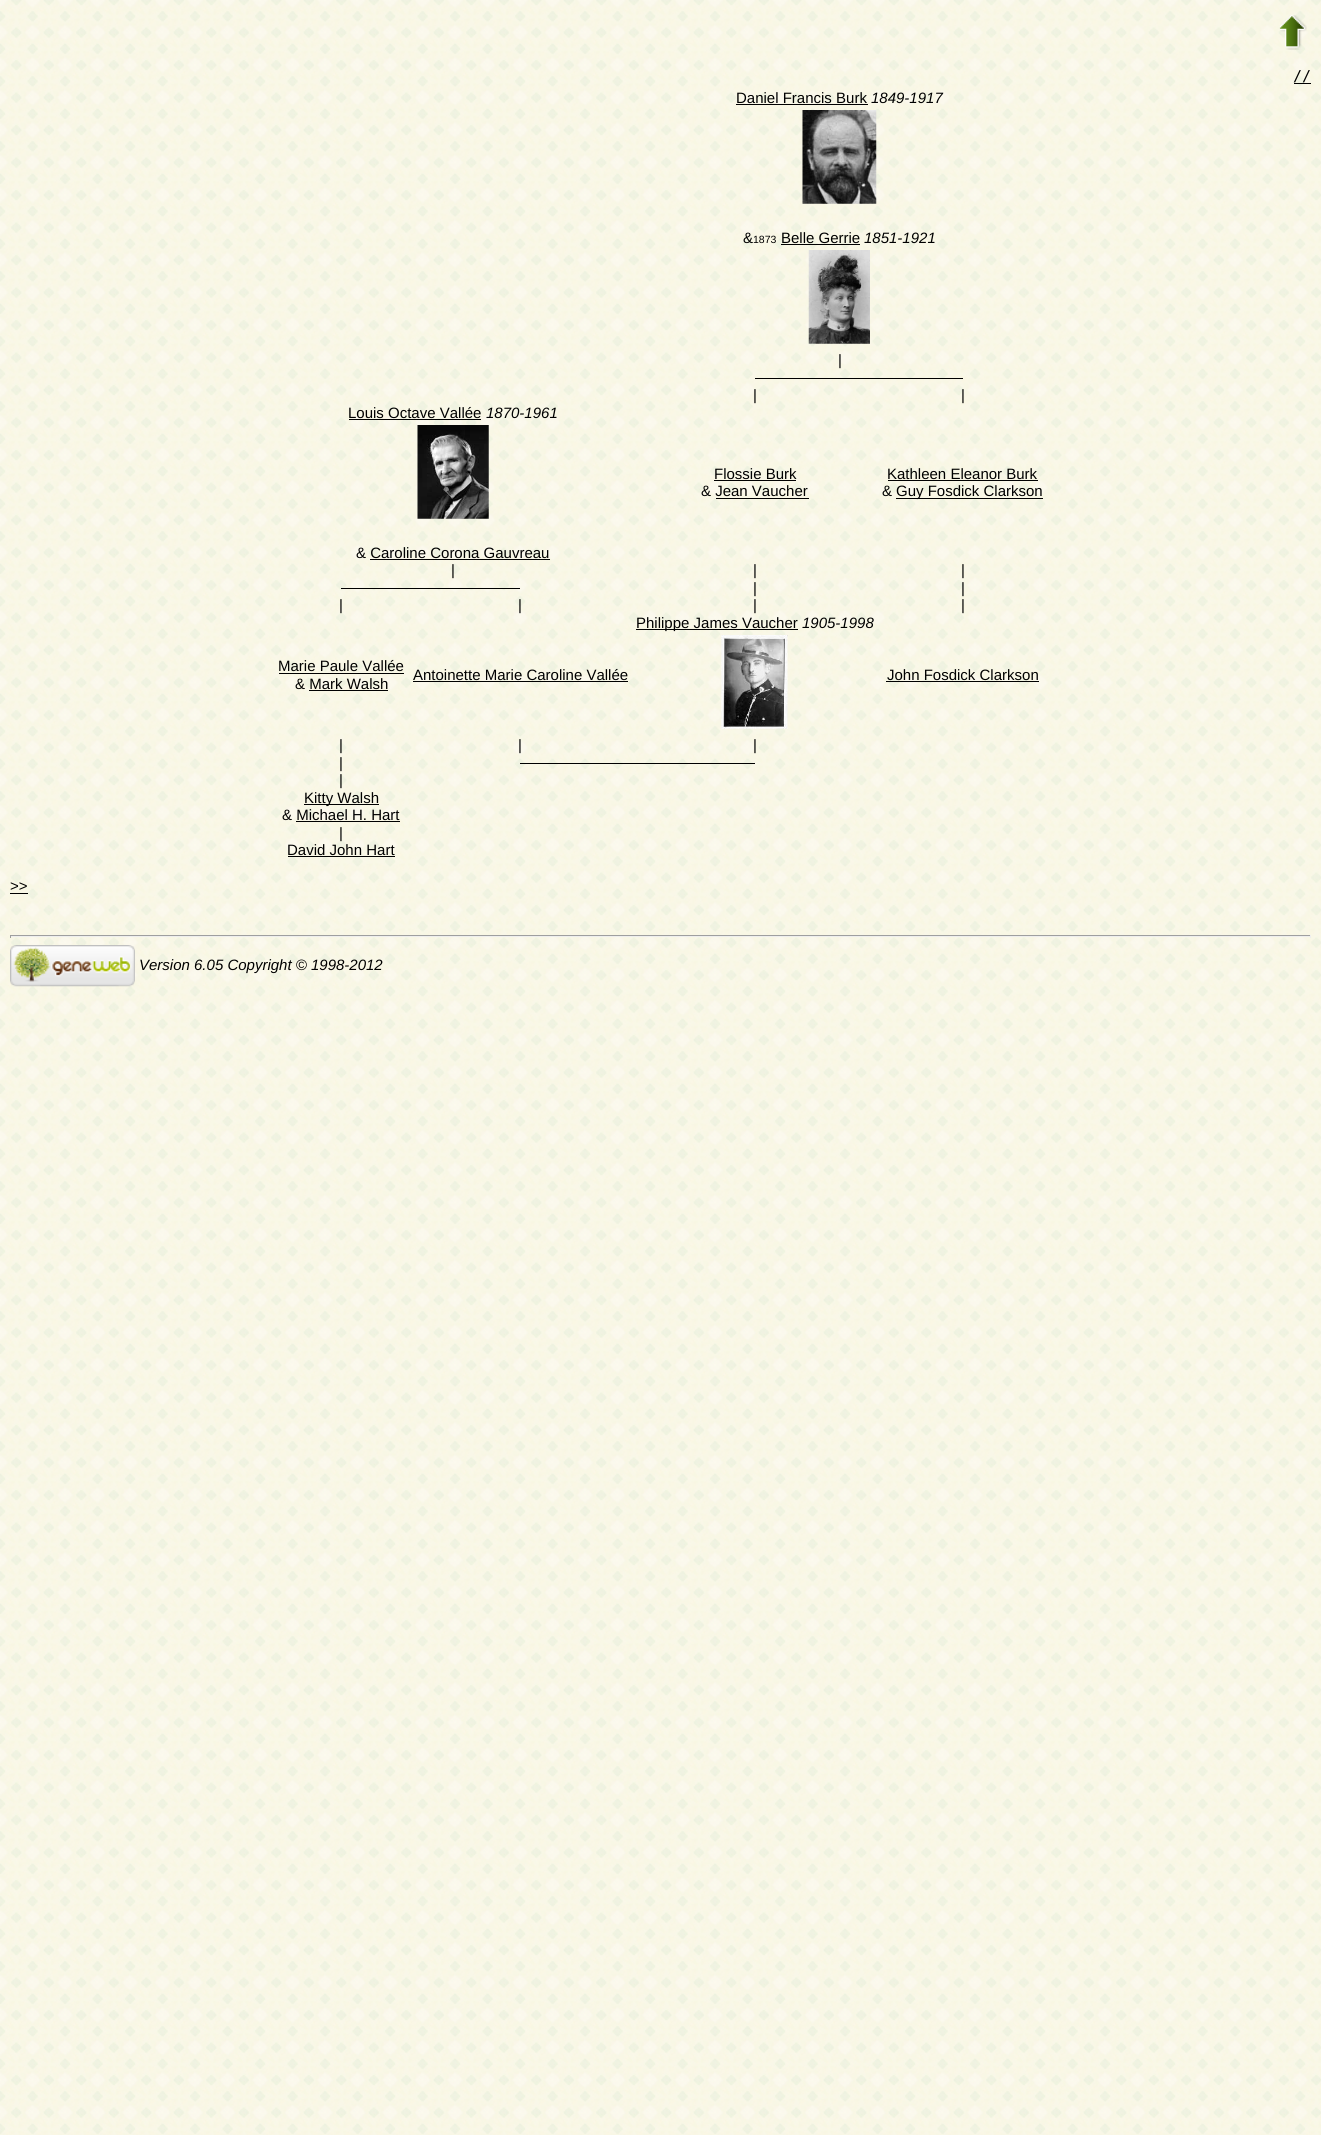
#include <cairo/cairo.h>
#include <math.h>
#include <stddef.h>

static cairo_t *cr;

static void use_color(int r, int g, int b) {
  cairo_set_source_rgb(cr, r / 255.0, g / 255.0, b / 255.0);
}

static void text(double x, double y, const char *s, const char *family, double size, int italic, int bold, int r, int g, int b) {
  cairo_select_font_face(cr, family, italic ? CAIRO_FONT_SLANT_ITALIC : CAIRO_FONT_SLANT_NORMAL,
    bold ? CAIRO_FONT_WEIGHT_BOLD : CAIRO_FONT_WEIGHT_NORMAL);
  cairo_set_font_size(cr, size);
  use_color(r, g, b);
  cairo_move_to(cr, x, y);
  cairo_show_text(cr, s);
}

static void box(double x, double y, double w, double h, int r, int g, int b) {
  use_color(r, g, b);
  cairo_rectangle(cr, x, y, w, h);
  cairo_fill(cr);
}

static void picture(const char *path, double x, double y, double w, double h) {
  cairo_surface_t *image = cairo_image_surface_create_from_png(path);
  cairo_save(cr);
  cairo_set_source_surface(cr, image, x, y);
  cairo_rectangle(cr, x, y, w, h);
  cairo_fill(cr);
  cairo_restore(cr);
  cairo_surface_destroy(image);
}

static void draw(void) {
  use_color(255, 255, 255);
  cairo_paint(cr);
  picture("img_01.png", 0, 0, 1321, 2135);
  picture("img_02.png", 1279, 15, 28, 35);
  box(1294, 83, 17, 1, 0, 0, 0);
  box(736, 104, 132, 1, 0, 0, 0);
  picture("img_03.png", 802, 110, 75, 94);
  box(781, 244, 79, 1, 0, 0, 0);
  picture("img_04.png", 808, 250, 62, 94);
  box(755, 378, 208, 1, 0, 0, 0);
  box(349, 419, 132, 1, 0, 0, 0);
  picture("img_05.png", 417, 425, 72, 94);
  box(370, 559, 180, 1, 0, 0, 0);
  box(714, 480, 82, 1, 0, 0, 0);
  box(716, 498, 93, 1, 0, 0, 0);
  box(888, 480, 150, 1, 0, 0, 0);
  box(896, 498, 147, 1, 0, 0, 0);
  box(341, 588, 179, 1, 0, 0, 0);
  box(636, 629, 162, 1, 0, 0, 0);
  picture("img_06.png", 721, 635, 67, 94);
  box(279, 673, 125, 1, 0, 0, 0);
  box(309, 690, 79, 1, 0, 0, 0);
  box(413, 681, 215, 1, 0, 0, 0);
  box(886, 681, 153, 1, 0, 0, 0);
  box(520, 763, 235, 1, 0, 0, 0);
  box(304, 804, 75, 1, 0, 0, 0);
  box(296, 821, 104, 1, 0, 0, 0);
  box(288, 856, 107, 1, 0, 0, 0);
  box(10, 893, 18, 1, 0, 0, 0);
  box(10, 935, 1301, 1, 159, 159, 159);
  box(1310, 935, 1, 3, 238, 238, 238);
  box(10, 936, 1301, 1, 238, 238, 238);
  box(10, 935, 1, 3, 159, 159, 159);
  picture("img_07.png", 10, 945, 125, 42);
  text(1293, 81, "//", "DejaVu Sans Mono", 15, 0, 0, 0, 0, 0);
  text(736, 103, "Daniel Francis Burk", "Liberation Sans", 15, 0, 0, 0, 0, 0);
  text(871, 103, "1849-1917", "Liberation Sans", 15, 1, 0, 0, 0, 0);
  text(743, 243, "&", "Liberation Sans", 15, 0, 0, 0, 0, 0);
  text(753, 243, "1873", "Liberation Sans", 10.5, 0, 0, 0, 0, 0);
  text(781, 243, "Belle Gerrie", "Liberation Sans", 15, 0, 0, 0, 0, 0);
  text(864, 243, "1851-1921", "Liberation Sans", 15, 1, 0, 0, 0, 0);
  text(838, 365, "|", "Liberation Sans", 15, 0, 0, 0, 0, 0);
  text(753, 400, "|", "Liberation Sans", 15, 0, 0, 0, 0, 0);
  text(961, 400, "|", "Liberation Sans", 15, 0, 0, 0, 0, 0);
  text(348, 418, "Louis Octave Vallée", "Liberation Sans", 15, 0, 0, 0, 0, 0);
  text(486, 418, "1870-1961", "Liberation Sans", 15, 1, 0, 0, 0, 0);
  text(356, 558, "& Caroline Corona Gauvreau", "Liberation Sans", 15, 0, 0, 0, 0, 0);
  text(714, 479, "Flossie Burk", "Liberation Sans", 15, 0, 0, 0, 0, 0);
  text(701, 496, "& Jean Vaucher", "Liberation Sans", 15, 0, 0, 0, 0, 0);
  text(887, 479, "Kathleen Eleanor Burk", "Liberation Sans", 15, 0, 0, 0, 0, 0);
  text(882, 496, "&", "Liberation Sans", 15, 0, 0, 0, 0, 0);
  text(896, 496, "Guy Fosdick Clarkson", "Liberation Sans", 15, 0, 0, 0, 0, 0);
  text(451, 575, "|", "Liberation Sans", 15, 0, 0, 0, 0, 0);
  text(753, 575, "|", "Liberation Sans", 15, 0, 0, 0, 0, 0);
  text(961, 575, "|", "Liberation Sans", 15, 0, 0, 0, 0, 0);
  text(753, 593, "|", "Liberation Sans", 15, 0, 0, 0, 0, 0);
  text(961, 593, "|", "Liberation Sans", 15, 0, 0, 0, 0, 0);
  text(339, 610, "|", "Liberation Sans", 15, 0, 0, 0, 0, 0);
  text(518, 610, "|", "Liberation Sans", 15, 0, 0, 0, 0, 0);
  text(753, 610, "|", "Liberation Sans", 15, 0, 0, 0, 0, 0);
  text(961, 610, "|", "Liberation Sans", 15, 0, 0, 0, 0, 0);
  text(636, 628, "Philippe James Vaucher", "Liberation Sans", 15, 0, 0, 0, 0, 0);
  text(802, 628, "1905-1998", "Liberation Sans", 15, 1, 0, 0, 0, 0);
  text(278, 671, "Marie Paule Vallée", "Liberation Sans", 15, 0, 0, 0, 0, 0);
  text(295, 689, "& Mark Walsh", "Liberation Sans", 15, 0, 0, 0, 0, 0);
  text(413, 680, "Antoinette Marie Caroline Vallée", "Liberation Sans", 15, 0, 0, 0, 0, 0);
  text(887, 680, "John Fosdick Clarkson", "Liberation Sans", 15, 0, 0, 0, 0, 0);
  text(339, 750, "|", "Liberation Sans", 15, 0, 0, 0, 0, 0);
  text(518, 750, "|", "Liberation Sans", 15, 0, 0, 0, 0, 0);
  text(753, 750, "|", "Liberation Sans", 15, 0, 0, 0, 0, 0);
  text(339, 768, "|", "Liberation Sans", 15, 0, 0, 0, 0, 0);
  text(339, 785, "|", "Liberation Sans", 15, 0, 0, 0, 0, 0);
  text(304, 803, "Kitty Walsh", "Liberation Sans", 15, 0, 0, 0, 0, 0);
  text(282, 820, "& Michael H. Hart", "Liberation Sans", 15, 0, 0, 0, 0, 0);
  text(339, 838, "|", "Liberation Sans", 15, 0, 0, 0, 0, 0);
  text(287, 855, "David John Hart", "Liberation Sans", 15, 0, 0, 0, 0, 0);
  text(10, 891, ">>", "Liberation Sans", 15, 0, 0, 0, 0, 0);
  text(139, 970, "Version 6.05 Copyright © 1998-2012", "Liberation Sans", 15, 1, 0, 0, 0, 0);
}

int main(void) {
  cairo_surface_t *surface = cairo_image_surface_create(CAIRO_FORMAT_RGB24, 1321, 2135);
  cr = cairo_create(surface);
  cairo_font_options_t *options = cairo_font_options_create();
  cairo_font_options_set_hint_metrics(options, CAIRO_HINT_METRICS_OFF);
  cairo_font_options_set_hint_style(options, CAIRO_HINT_STYLE_NONE);
  cairo_set_font_options(cr, options);
  cairo_set_miter_limit(cr, 4);
  draw();
  cairo_surface_write_to_png(surface, "out.png");
  cairo_font_options_destroy(options);
  cairo_destroy(cr);
  cairo_surface_destroy(surface);
  return 0;
}
